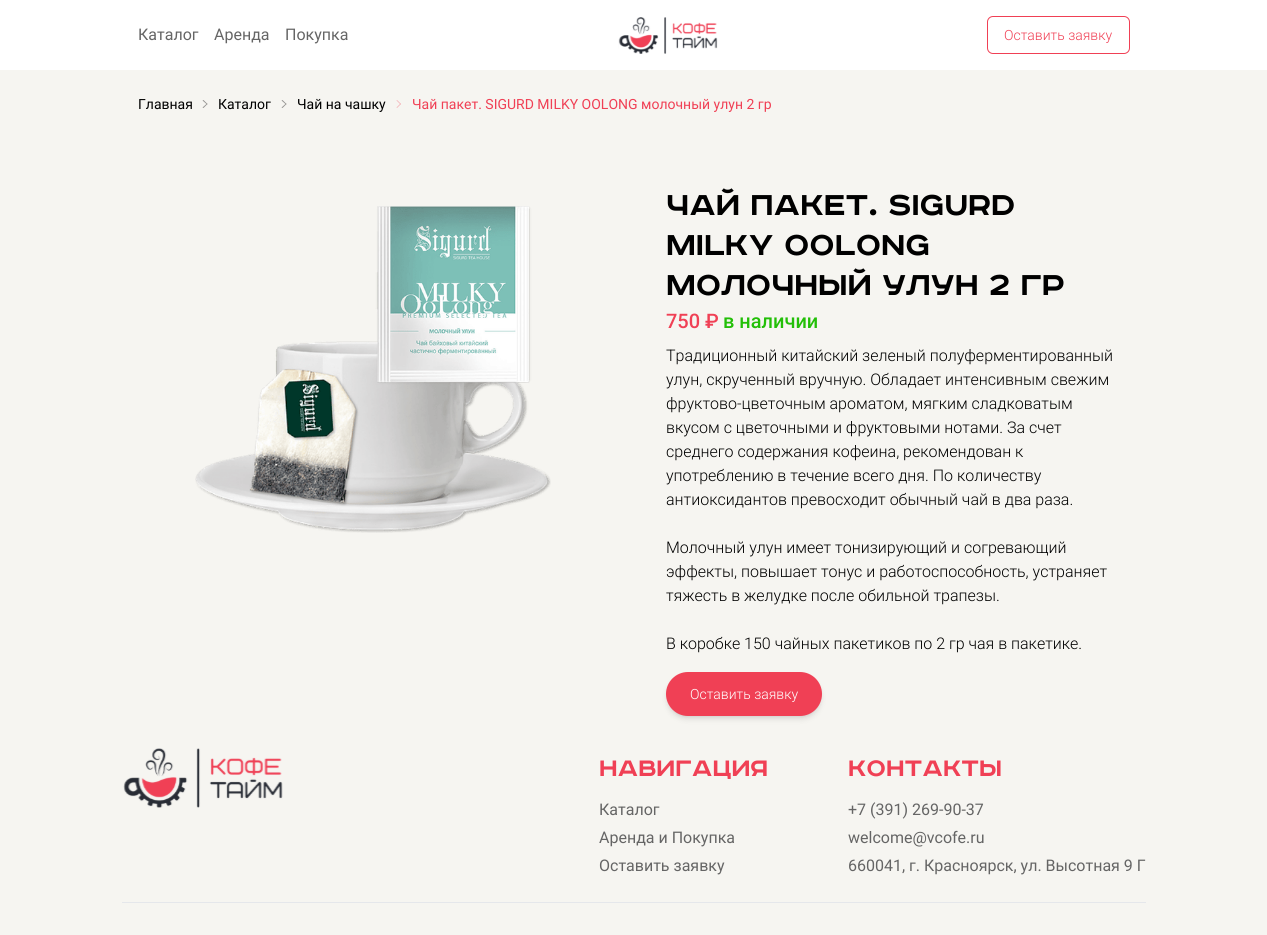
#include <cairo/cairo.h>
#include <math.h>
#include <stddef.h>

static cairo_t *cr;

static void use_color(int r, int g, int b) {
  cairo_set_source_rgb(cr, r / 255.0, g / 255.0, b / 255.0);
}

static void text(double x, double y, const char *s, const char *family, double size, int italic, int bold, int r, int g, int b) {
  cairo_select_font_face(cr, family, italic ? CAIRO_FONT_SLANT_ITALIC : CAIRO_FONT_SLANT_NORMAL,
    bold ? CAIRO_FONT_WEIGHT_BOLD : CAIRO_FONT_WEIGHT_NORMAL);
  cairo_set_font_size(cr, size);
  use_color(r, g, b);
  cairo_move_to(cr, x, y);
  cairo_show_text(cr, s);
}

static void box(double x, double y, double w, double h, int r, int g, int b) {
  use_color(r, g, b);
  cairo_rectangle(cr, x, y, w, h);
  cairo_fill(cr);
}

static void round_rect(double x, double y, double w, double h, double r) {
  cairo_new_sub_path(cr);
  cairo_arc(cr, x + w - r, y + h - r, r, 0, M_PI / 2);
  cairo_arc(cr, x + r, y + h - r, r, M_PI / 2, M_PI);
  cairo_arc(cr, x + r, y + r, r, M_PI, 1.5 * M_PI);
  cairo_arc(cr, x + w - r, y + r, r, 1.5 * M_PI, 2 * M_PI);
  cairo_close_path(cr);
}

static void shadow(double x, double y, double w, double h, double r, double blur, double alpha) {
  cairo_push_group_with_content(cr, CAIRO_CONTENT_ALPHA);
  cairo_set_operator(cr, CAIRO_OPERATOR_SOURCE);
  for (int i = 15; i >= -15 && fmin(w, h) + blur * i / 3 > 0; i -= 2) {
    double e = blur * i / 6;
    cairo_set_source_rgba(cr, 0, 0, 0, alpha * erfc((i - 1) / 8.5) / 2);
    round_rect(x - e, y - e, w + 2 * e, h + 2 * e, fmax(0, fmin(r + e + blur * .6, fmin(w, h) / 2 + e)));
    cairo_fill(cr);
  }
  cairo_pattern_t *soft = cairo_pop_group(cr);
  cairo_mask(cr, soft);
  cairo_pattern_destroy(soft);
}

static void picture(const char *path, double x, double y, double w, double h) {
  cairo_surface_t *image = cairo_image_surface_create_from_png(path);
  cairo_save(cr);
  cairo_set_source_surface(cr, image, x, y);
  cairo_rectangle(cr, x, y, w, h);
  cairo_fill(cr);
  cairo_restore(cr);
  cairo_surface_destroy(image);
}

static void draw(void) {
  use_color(246, 245, 241);
  cairo_paint(cr);
  box(0, 0, 1267, 70, 255, 255, 255);
  picture("img_01.png", 618, 17, 100, 37);
  round_rect(987.5, 16.5, 142, 37, 5.5);
  use_color(240, 64, 85);
  cairo_set_line_width(cr, 1);
  cairo_stroke(cr);
  use_color(148, 147, 145);
  cairo_new_path(cr);
  cairo_move_to(cr, 203.5, 100);
  cairo_line_to(cr, 207.5, 104);
  cairo_line_to(cr, 207, 104.5);
  cairo_line_to(cr, 202.5, 100.5);
  cairo_close_path(cr);
  cairo_fill(cr);
  cairo_new_path(cr);
  cairo_move_to(cr, 207, 103.5);
  cairo_line_to(cr, 207.5, 104);
  cairo_line_to(cr, 203.5, 108);
  cairo_line_to(cr, 202.5, 107.5);
  cairo_close_path(cr);
  cairo_fill(cr);
  cairo_new_path(cr);
  cairo_move_to(cr, 282.5, 100);
  cairo_line_to(cr, 286.5, 104);
  cairo_line_to(cr, 286, 104.5);
  cairo_line_to(cr, 281.5, 100.5);
  cairo_close_path(cr);
  cairo_fill(cr);
  cairo_new_path(cr);
  cairo_move_to(cr, 286, 103.5);
  cairo_line_to(cr, 286.5, 104);
  cairo_line_to(cr, 282.5, 108);
  cairo_line_to(cr, 281.5, 107.5);
  cairo_close_path(cr);
  cairo_fill(cr);
  use_color(244, 173, 179);
  cairo_new_path(cr);
  cairo_move_to(cr, 397, 100);
  cairo_line_to(cr, 401, 104);
  cairo_line_to(cr, 400.5, 104.5);
  cairo_line_to(cr, 396.5, 100.5);
  cairo_close_path(cr);
  cairo_fill(cr);
  cairo_new_path(cr);
  cairo_move_to(cr, 400.5, 103.5);
  cairo_line_to(cr, 401, 104);
  cairo_line_to(cr, 397, 108);
  cairo_line_to(cr, 396.5, 107.5);
  cairo_close_path(cr);
  cairo_fill(cr);
  picture("img_02.png", 195, 206, 356, 327);
  use_color(0, 0, 0);
  shadow(668, 676, 152, 40, 20, 2, 0.1);
  shadow(667, 677, 154, 42, 21, 3, 0.1);
  use_color(240, 64, 85);
  round_rect(666, 672, 156, 44, 22);
  cairo_fill(cr);
  picture("img_03.png", 123, 748, 160, 60);
  box(122, 902, 1024, 1, 229, 231, 235);
  text(138, 40, "Каталог", "Roboto", 16, 0, 0, 101, 101, 101);
  text(214, 40, "Аренда", "Roboto", 16, 0, 0, 101, 101, 101);
  text(285, 40, "Покупка", "Roboto", 16, 0, 0, 101, 101, 101);
  text(1004, 40, "Оставить заявку", "Roboto Light", 14, 0, 0, 240, 64, 85);
  text(138, 109, "Главная", "Roboto", 14, 0, 0, 0, 0, 0);
  text(218, 109, "Каталог", "Roboto", 14, 0, 0, 0, 0, 0);
  text(297, 109, "Чай на чашку", "Roboto", 14, 0, 0, 0, 0, 0);
  text(412, 109, "Чай пакет. SIGURD MILKY OOLONG молочный улун 2 гр", "Roboto", 14, 0, 0, 240, 64, 85);
  text(666, 215, "Чай пакет. SIGURD", "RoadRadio", 36, 0, 1, 0, 0, 0);
  text(666, 255, "MILKY OOLONG", "RoadRadio", 36, 0, 1, 0, 0, 0);
  text(666, 295, "молочный улун 2 гр", "RoadRadio", 36, 0, 1, 0, 0, 0);
  text(666, 328, "750 ₽", "Roboto Medium", 20, 0, 0, 240, 64, 85);
  text(723, 328, "в наличии", "Roboto Medium", 20, 0, 0, 35, 191, 8);
  text(666, 361, "Традиционный китайский зеленый полуферментированный", "Roboto Light", 16, 0, 0, 0, 0, 0);
  text(666, 385, "улун, скрученный вручную. Обладает интенсивным свежим", "Roboto Light", 16, 0, 0, 0, 0, 0);
  text(666, 409, "фруктово-цветочным ароматом, мягким сладковатым", "Roboto Light", 16, 0, 0, 0, 0, 0);
  text(666, 433, "вкусом с цветочными и фруктовыми нотами. За счет", "Roboto Light", 16, 0, 0, 0, 0, 0);
  text(666, 457, "среднего содержания кофеина, рекомендован к", "Roboto Light", 16, 0, 0, 0, 0, 0);
  text(666, 481, "употреблению в течение всего дня. По количеству", "Roboto Light", 16, 0, 0, 0, 0, 0);
  text(666, 505, "антиоксидантов превосходит обычный чай в два раза.", "Roboto Light", 16, 0, 0, 0, 0, 0);
  text(666, 553, "Молочный улун имеет тонизирующий и согревающий", "Roboto Light", 16, 0, 0, 0, 0, 0);
  text(666, 577, "эффекты, повышает тонус и работоспособность, устраняет", "Roboto Light", 16, 0, 0, 0, 0, 0);
  text(666, 601, "тяжесть в желудке после обильной трапезы.", "Roboto Light", 16, 0, 0, 0, 0, 0);
  text(666, 649, "В коробке 150 чайных пакетиков по 2 гр чая в пакетике.", "Roboto Light", 16, 0, 0, 0, 0, 0);
  text(690, 699, "Оставить заявку", "Roboto Light", 14, 0, 0, 255, 255, 255);
  text(599, 776, "Навигация", "RoadRadio", 28, 0, 1, 240, 64, 85);
  text(599, 815, "Каталог", "Roboto", 16, 0, 0, 101, 101, 101);
  text(599, 843, "Аренда и Покупка", "Roboto", 16, 0, 0, 101, 101, 101);
  text(599, 871, "Оставить заявку", "Roboto", 16, 0, 0, 101, 101, 101);
  text(848, 776, "Контакты", "RoadRadio", 28, 0, 1, 240, 64, 85);
  text(848, 815, "+7 (391) 269-90-37", "Roboto", 16, 0, 0, 101, 101, 101);
  text(848, 843, "welcome@vcofe.ru", "Roboto", 16, 0, 0, 101, 101, 101);
  text(848, 871, "660041, г. Красноярск, ул. Высотная 9 Г", "Roboto", 16, 0, 0, 101, 101, 101);
}

int main(void) {
  cairo_surface_t *surface = cairo_image_surface_create(CAIRO_FORMAT_RGB24, 1267, 935);
  cr = cairo_create(surface);
  cairo_font_options_t *options = cairo_font_options_create();
  cairo_font_options_set_hint_metrics(options, CAIRO_HINT_METRICS_OFF);
  cairo_font_options_set_hint_style(options, CAIRO_HINT_STYLE_NONE);
  cairo_set_font_options(cr, options);
  cairo_set_miter_limit(cr, 4);
  draw();
  cairo_surface_write_to_png(surface, "out.png");
  cairo_font_options_destroy(options);
  cairo_destroy(cr);
  cairo_surface_destroy(surface);
  return 0;
}
